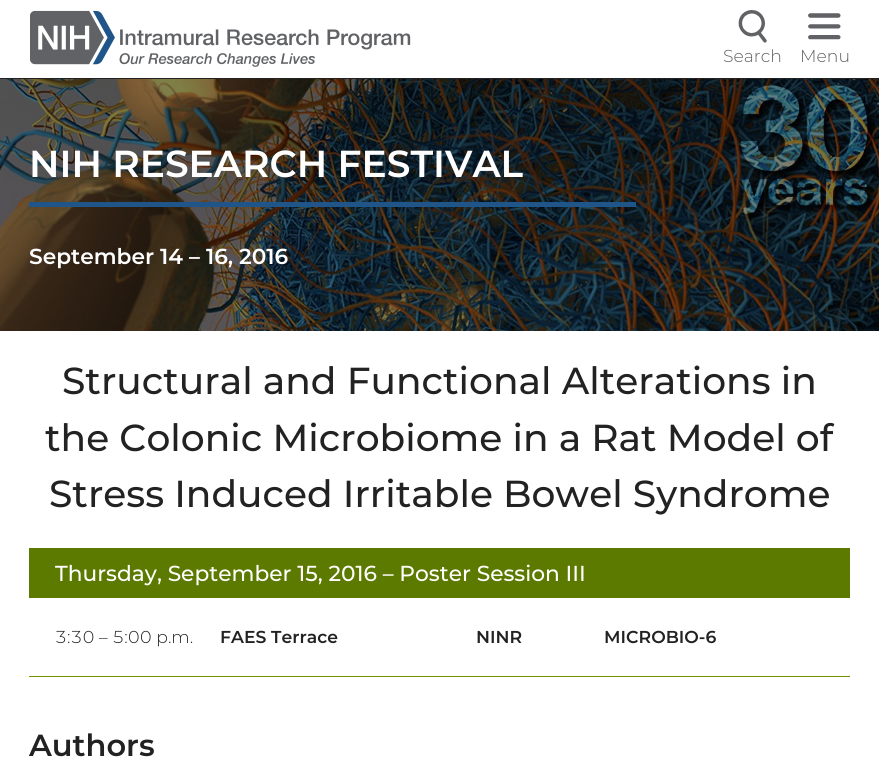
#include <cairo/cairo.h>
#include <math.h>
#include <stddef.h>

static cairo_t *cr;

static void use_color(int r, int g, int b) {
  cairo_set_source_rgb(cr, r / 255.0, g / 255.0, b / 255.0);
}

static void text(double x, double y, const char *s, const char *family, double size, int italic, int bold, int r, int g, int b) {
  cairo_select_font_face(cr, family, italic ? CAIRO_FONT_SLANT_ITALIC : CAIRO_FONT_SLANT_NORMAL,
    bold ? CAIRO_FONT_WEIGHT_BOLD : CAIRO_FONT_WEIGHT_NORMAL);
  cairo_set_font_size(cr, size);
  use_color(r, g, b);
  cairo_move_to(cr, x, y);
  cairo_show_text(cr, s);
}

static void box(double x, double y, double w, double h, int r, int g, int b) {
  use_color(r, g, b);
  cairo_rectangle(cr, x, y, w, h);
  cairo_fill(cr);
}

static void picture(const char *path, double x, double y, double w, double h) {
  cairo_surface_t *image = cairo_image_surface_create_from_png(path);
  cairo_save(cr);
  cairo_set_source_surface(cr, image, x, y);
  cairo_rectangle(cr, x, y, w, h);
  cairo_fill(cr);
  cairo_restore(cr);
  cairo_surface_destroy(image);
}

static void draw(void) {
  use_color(255, 255, 255);
  cairo_paint(cr);
  box(0, 78, 879, 1, 34, 34, 34);
  picture("img_01.png", 30, 10, 381, 57);
  picture("img_02.png", 738, 10, 29, 33);
  picture("img_03.png", 808, 13, 33, 27);
  picture("img_04.png", 0, 79, 879, 252);
  box(29, 202, 607, 5, 32, 85, 138);
  box(29, 548, 821, 50, 93, 122, 0);
  box(29, 676, 821, 1, 113, 149, 0);
  text(723, 62, "Search", "Montserrat Light", 17.25, 0, 0, 97, 98, 101);
  text(800, 62, "Menu", "Montserrat Light", 17.25, 0, 0, 97, 98, 101);
  text(29, 177, "NIH RESEARCH FESTIVAL", "Montserrat SemiBold", 37.6, 0, 0, 255, 255, 255);
  text(29, 264, "September 14 – 16, 2016", "Montserrat SemiBold", 21.7, 0, 0, 255, 255, 255);
  text(62, 394, "Structural and Functional Alterations in", "Montserrat Medium", 37.6, 0, 0, 34, 34, 34);
  text(45, 451, "the Colonic Microbiome in a Rat Model of", "Montserrat Medium", 37.6, 0, 0, 34, 34, 34);
  text(49, 507, "Stress Induced Irritable Bowel Syndrome", "Montserrat Medium", 37.6, 0, 0, 34, 34, 34);
  text(55, 581, "Thursday, September 15, 2016 – Poster Session III", "Montserrat Medium", 21.7, 0, 0, 255, 255, 255);
  text(55, 643, "3:30 – 5:00 p.m.", "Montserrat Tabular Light", 17.25, 0, 0, 34, 34, 34);
  text(220, 643, "FAES Terrace", "Montserrat SemiBold", 17.25, 0, 0, 34, 34, 34);
  text(476, 643, "NINR", "Montserrat SemiBold", 17.25, 0, 0, 34, 34, 34);
  text(604, 643, "MICROBIO-6", "Montserrat SemiBold", 17.25, 0, 0, 34, 34, 34);
  text(29, 756, "Authors", "Montserrat SemiBold", 30.5, 0, 0, 34, 34, 34);
}

int main(void) {
  cairo_surface_t *surface = cairo_image_surface_create(CAIRO_FORMAT_RGB24, 879, 765);
  cr = cairo_create(surface);
  cairo_font_options_t *options = cairo_font_options_create();
  cairo_font_options_set_hint_metrics(options, CAIRO_HINT_METRICS_OFF);
  cairo_font_options_set_hint_style(options, CAIRO_HINT_STYLE_NONE);
  cairo_set_font_options(cr, options);
  cairo_set_miter_limit(cr, 4);
  draw();
  cairo_surface_write_to_png(surface, "out.png");
  cairo_font_options_destroy(options);
  cairo_destroy(cr);
  cairo_surface_destroy(surface);
  return 0;
}
